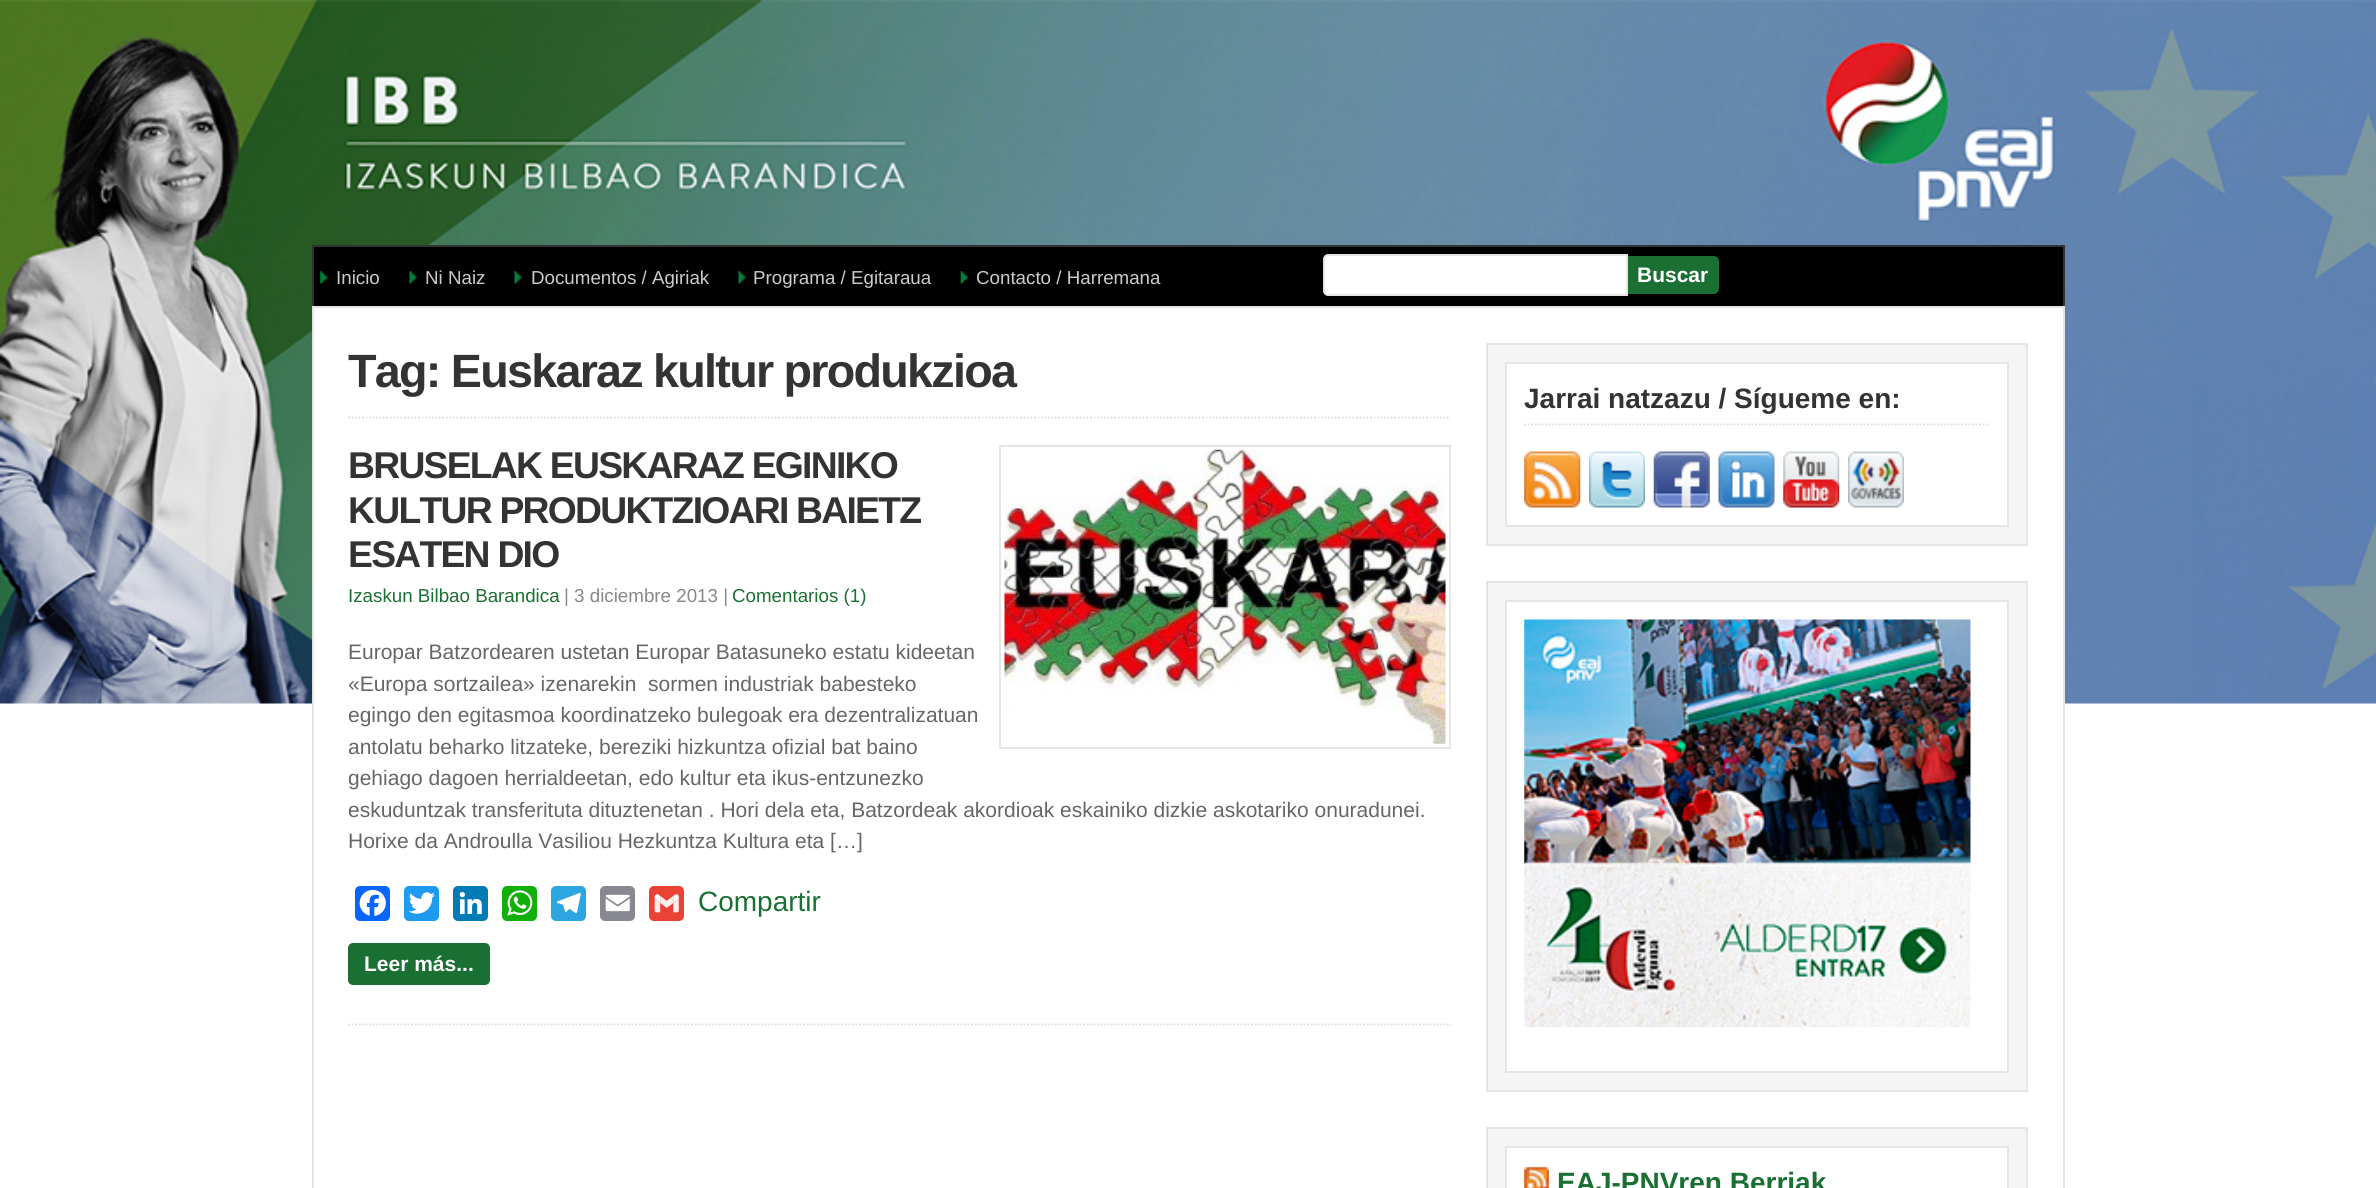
#include <cairo/cairo.h>
#include <math.h>
#include <stddef.h>

static cairo_t *cr;

static void use_color(int r, int g, int b) {
  cairo_set_source_rgb(cr, r / 255.0, g / 255.0, b / 255.0);
}

static void text(double x, double y, const char *s, const char *family, double size, int italic, int bold, int r, int g, int b) {
  cairo_select_font_face(cr, family, italic ? CAIRO_FONT_SLANT_ITALIC : CAIRO_FONT_SLANT_NORMAL,
    bold ? CAIRO_FONT_WEIGHT_BOLD : CAIRO_FONT_WEIGHT_NORMAL);
  cairo_set_font_size(cr, size);
  use_color(r, g, b);
  cairo_move_to(cr, x, y);
  cairo_show_text(cr, s);
}

static void spaced_text(double x, double y, const char *s, double letter, double word) {
  cairo_move_to(cr, x, y);
  while (*s) {
    char ch[5] = {0};
    int n = 0;
    do ch[n++] = *s++; while ((*s & 0xC0) == 0x80);
    cairo_show_text(cr, ch);
    cairo_rel_move_to(cr, letter + word * (*ch == ' '), 0);
  }
}

static void box(double x, double y, double w, double h, int r, int g, int b) {
  use_color(r, g, b);
  cairo_rectangle(cr, x, y, w, h);
  cairo_fill(cr);
}

static void round_rect(double x, double y, double w, double h, double r) {
  cairo_new_sub_path(cr);
  cairo_arc(cr, x + w - r, y + h - r, r, 0, M_PI / 2);
  cairo_arc(cr, x + r, y + h - r, r, M_PI / 2, M_PI);
  cairo_arc(cr, x + r, y + r, r, M_PI, 1.5 * M_PI);
  cairo_arc(cr, x + w - r, y + r, r, 1.5 * M_PI, 2 * M_PI);
  cairo_close_path(cr);
}

static void picture(const char *path, double x, double y, double w, double h) {
  cairo_surface_t *image = cairo_image_surface_create_from_png(path);
  cairo_save(cr);
  cairo_set_source_surface(cr, image, x, y);
  cairo_rectangle(cr, x, y, w, h);
  cairo_fill(cr);
  cairo_restore(cr);
  cairo_surface_destroy(image);
}

static void draw(void) {
  use_color(255, 255, 255);
  cairo_paint(cr);
  picture("img_01.png", 0, 0, 2376, 704);
  box(314, 247, 1749, 59, 0, 0, 0);
  box(312, 245, 1753, 2, 51, 51, 51);
  box(2063, 245, 2, 61, 51, 51, 51);
  box(312, 245, 2, 61, 51, 51, 51);
  picture("img_02.png", 320, 271, 8, 13);
  picture("img_03.png", 409, 271, 8, 13);
  picture("img_03.png", 514, 271, 8, 13);
  picture("img_03.png", 738, 271, 8, 13);
  picture("img_04.png", 960, 271, 8, 13);
  use_color(255, 255, 255);
  cairo_new_path(cr);
  cairo_move_to(cr, 1328, 255);
  cairo_line_to(cr, 1627, 255);
  cairo_line_to(cr, 1627, 295);
  cairo_line_to(cr, 1328, 295);
  cairo_curve_to(cr, 1326, 295, 1324, 293, 1324, 291);
  cairo_line_to(cr, 1324, 259);
  cairo_curve_to(cr, 1324, 257, 1326, 255, 1328, 255);
  cairo_close_path(cr);
  cairo_fill_preserve(cr);
  use_color(229, 229, 229);
  cairo_stroke(cr);
  use_color(26, 112, 50);
  cairo_new_path(cr);
  cairo_move_to(cr, 1629, 257);
  cairo_line_to(cr, 1714, 257);
  cairo_curve_to(cr, 1716, 257, 1718, 259, 1718, 261);
  cairo_line_to(cr, 1718, 289);
  cairo_curve_to(cr, 1718, 291, 1716, 293, 1714, 293);
  cairo_line_to(cr, 1629, 293);
  cairo_close_path(cr);
  cairo_fill_preserve(cr);
  cairo_stroke(cr);
  box(314, 308, 1749, 396, 255, 255, 255);
  cairo_rectangle(cr, 313, 307, 1751, 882);
  use_color(229, 229, 229);
  cairo_stroke(cr);
  cairo_new_path(cr);
  cairo_move_to(cr, 348, 417.5);
  cairo_line_to(cr, 1451, 417.5);
  use_color(221, 221, 221);
  cairo_set_line_width(cr, 1.8);
  cairo_set_dash(cr, (double[]){1.75, 1.75}, 2, 0);
  cairo_stroke(cr);
  cairo_new_path(cr);
  cairo_move_to(cr, 348, 1024.5);
  cairo_line_to(cr, 1451, 1024.5);
  cairo_stroke(cr);
  cairo_rectangle(cr, 1000, 446, 450, 302);
  use_color(229, 229, 229);
  cairo_set_line_width(cr, 2);
  cairo_set_dash(cr, NULL, 0, 0);
  cairo_stroke(cr);
  picture("img_05.png", 1004, 449, 442, 295);
  use_color(8, 102, 255);
  round_rect(355, 886, 35, 35, 5);
  cairo_fill(cr);
  picture("img_06.png", 359, 889, 27, 27);
  use_color(29, 155, 240);
  round_rect(404, 886, 35, 35, 5);
  cairo_fill(cr);
  picture("img_07.png", 408, 892, 27, 22);
  use_color(0, 123, 181);
  round_rect(453, 886, 35, 35, 5);
  cairo_fill(cr);
  picture("img_08.png", 459, 892, 23, 23);
  use_color(18, 175, 10);
  round_rect(502, 886, 35, 35, 5);
  cairo_fill(cr);
  picture("img_09.png", 507, 890, 26, 26);
  use_color(44, 165, 224);
  round_rect(551, 886, 35, 35, 5);
  cairo_fill(cr);
  picture("img_10.png", 556, 892, 25, 22);
  use_color(136, 137, 144);
  round_rect(600, 886, 35, 35, 5);
  cairo_fill(cr);
  picture("img_11.png", 605, 894, 25, 18);
  use_color(234, 67, 53);
  round_rect(649, 886, 35, 35, 5);
  cairo_fill(cr);
  picture("img_12.png", 654, 894, 25, 19);
  use_color(26, 112, 50);
  round_rect(349, 944, 140, 40, 4);
  cairo_fill_preserve(cr);
  cairo_stroke(cr);
  use_color(245, 245, 245);
  cairo_rectangle(cr, 1487, 344, 540, 201);
  cairo_fill_preserve(cr);
  use_color(229, 229, 229);
  cairo_stroke(cr);
  use_color(255, 255, 255);
  cairo_rectangle(cr, 1506, 363, 502, 163);
  cairo_fill_preserve(cr);
  use_color(229, 229, 229);
  cairo_stroke(cr);
  cairo_new_path(cr);
  cairo_move_to(cr, 1524, 424.5);
  cairo_line_to(cr, 1990, 424.5);
  use_color(221, 221, 221);
  cairo_set_line_width(cr, 1.8);
  cairo_set_dash(cr, (double[]){1.75, 1.75}, 2, 0);
  cairo_stroke(cr);
  picture("img_13.png", 1524, 451, 57, 57);
  picture("img_14.png", 1589, 451, 56, 57);
  picture("img_15.png", 1653, 451, 57, 57);
  picture("img_16.png", 1718, 451, 57, 57);
  picture("img_17.png", 1783, 451, 57, 57);
  picture("img_18.png", 1848, 451, 56, 57);
  use_color(245, 245, 245);
  cairo_rectangle(cr, 1487, 582, 540, 509);
  cairo_fill_preserve(cr);
  use_color(229, 229, 229);
  cairo_set_line_width(cr, 2);
  cairo_set_dash(cr, NULL, 0, 0);
  cairo_stroke(cr);
  use_color(255, 255, 255);
  cairo_rectangle(cr, 1506, 601, 502, 471);
  cairo_fill_preserve(cr);
  use_color(229, 229, 229);
  cairo_stroke(cr);
  picture("img_19.png", 1524, 619, 447, 409);
  use_color(245, 245, 245);
  cairo_rectangle(cr, 1487, 1128, 540, 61);
  cairo_fill_preserve(cr);
  use_color(229, 229, 229);
  cairo_stroke(cr);
  use_color(255, 255, 255);
  cairo_rectangle(cr, 1506, 1147, 502, 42);
  cairo_fill_preserve(cr);
  use_color(229, 229, 229);
  cairo_stroke(cr);
  picture("img_20.png", 1524, 1167, 25, 21);
  text(336, 284, "Inicio", "Liberation Sans", 18.75, 0, 0, 204, 204, 204);
  text(425, 284, "Ni Naiz", "Liberation Sans", 18.75, 0, 0, 204, 204, 204);
  text(531, 284, "Documentos / Agiriak", "Liberation Sans", 18.75, 0, 0, 204, 204, 204);
  text(753, 284, "Programa / Egitaraua", "Liberation Sans", 18.75, 0, 0, 204, 204, 204);
  text(976, 284, "Contacto / Harremana", "Liberation Sans", 18.75, 0, 0, 204, 204, 204);
  text(1637, 282, "Buscar", "Liberation Sans", 21, 0, 1, 255, 255, 255);
  cairo_set_font_size(cr, 46.7);
  use_color(51, 51, 51);
  spaced_text(348, 387, "Tag: Euskaraz kultur produkzioa", -1.75, 0);
  cairo_set_font_size(cr, 37.3);
  spaced_text(348, 478, "BRUSELAK EUSKARAZ EGINIKO", -1.75, 0);
  spaced_text(348, 523, "KULTUR PRODUKTZIOARI BAIETZ", -1.75, 0);
  spaced_text(348, 567, "ESATEN DIO", -1.75, 0);
  text(348, 602, "Izaskun Bilbao Barandica", "Liberation Sans", 18.75, 0, 0, 26, 112, 50);
  text(564, 602, "| 3 diciembre 2013 |", "Liberation Sans", 18.75, 0, 0, 136, 136, 136);
  text(732, 602, "Comentarios (1)", "Liberation Sans", 18.75, 0, 0, 26, 112, 50);
  text(348, 659, "Europar Batzordearen ustetan Europar Batasuneko estatu kideetan", "Liberation Sans", 21, 0, 0, 102, 102, 102);
  text(348, 691, "«Europa sortzailea» izenarekin  sormen industriak babesteko", "Liberation Sans", 21, 0, 0, 102, 102, 102);
  text(348, 722, "egingo den egitasmoa koordinatzeko bulegoak era dezentralizatuan", "Liberation Sans", 21, 0, 0, 102, 102, 102);
  text(348, 754, "antolatu beharko litzateke, bereziki hizkuntza ofizial bat baino", "Liberation Sans", 21, 0, 0, 102, 102, 102);
  text(348, 785, "gehiago dagoen herrialdeetan, edo kultur eta ikus-entzunezko", "Liberation Sans", 21, 0, 0, 102, 102, 102);
  text(348, 817, "eskuduntzak transferituta dituztenetan . Hori dela eta, Batzordeak akordioak eskainiko dizkie askotariko onuradunei.", "Liberation Sans", 21, 0, 0, 102, 102, 102);
  text(348, 848, "Horixe da Androulla Vasiliou Hezkuntza Kultura eta […]", "Liberation Sans", 21, 0, 0, 102, 102, 102);
  text(698, 911, "Compartir", "Liberation Sans", 28, 0, 0, 26, 112, 50);
  text(364, 971, "Leer más...", "Liberation Sans", 21, 0, 1, 255, 255, 255);
  text(1524, 408, "Jarrai natzazu / Sígueme en:", "Liberation Sans", 28, 0, 1, 51, 51, 51);
  text(1557, 1192, "EAJ-PNVren Berriak", "Liberation Sans", 28, 0, 1, 26, 112, 50);
}

int main(void) {
  cairo_surface_t *surface = cairo_image_surface_create(CAIRO_FORMAT_RGB24, 2376, 1188);
  cr = cairo_create(surface);
  cairo_font_options_t *options = cairo_font_options_create();
  cairo_font_options_set_hint_metrics(options, CAIRO_HINT_METRICS_OFF);
  cairo_font_options_set_hint_style(options, CAIRO_HINT_STYLE_NONE);
  cairo_set_font_options(cr, options);
  cairo_set_miter_limit(cr, 4);
  draw();
  cairo_surface_write_to_png(surface, "out.png");
  cairo_font_options_destroy(options);
  cairo_destroy(cr);
  cairo_surface_destroy(surface);
  return 0;
}
